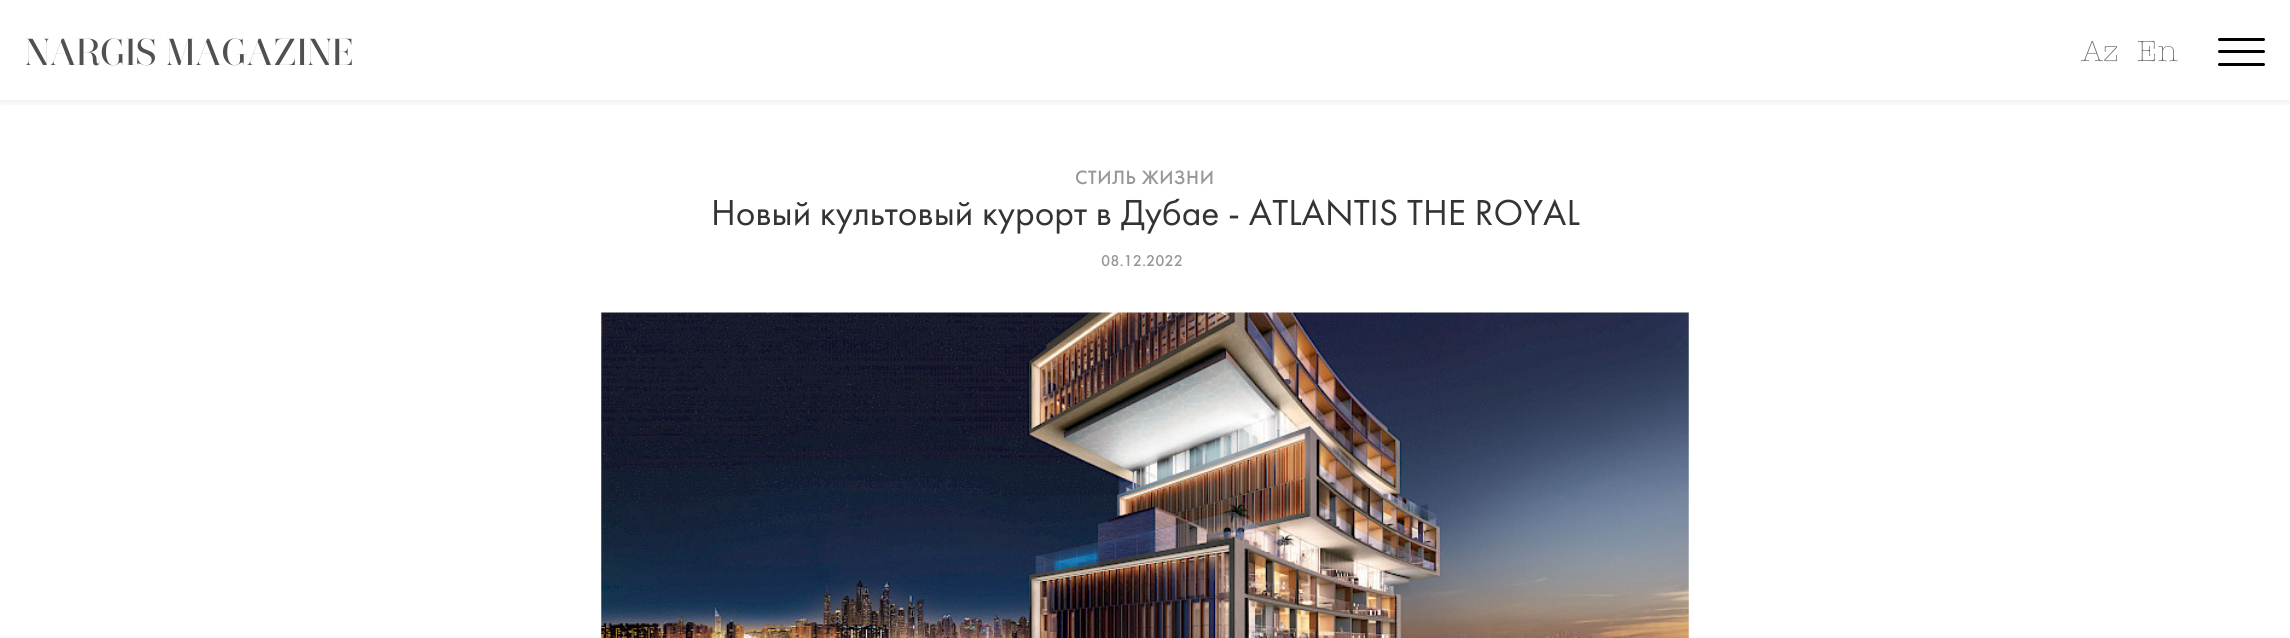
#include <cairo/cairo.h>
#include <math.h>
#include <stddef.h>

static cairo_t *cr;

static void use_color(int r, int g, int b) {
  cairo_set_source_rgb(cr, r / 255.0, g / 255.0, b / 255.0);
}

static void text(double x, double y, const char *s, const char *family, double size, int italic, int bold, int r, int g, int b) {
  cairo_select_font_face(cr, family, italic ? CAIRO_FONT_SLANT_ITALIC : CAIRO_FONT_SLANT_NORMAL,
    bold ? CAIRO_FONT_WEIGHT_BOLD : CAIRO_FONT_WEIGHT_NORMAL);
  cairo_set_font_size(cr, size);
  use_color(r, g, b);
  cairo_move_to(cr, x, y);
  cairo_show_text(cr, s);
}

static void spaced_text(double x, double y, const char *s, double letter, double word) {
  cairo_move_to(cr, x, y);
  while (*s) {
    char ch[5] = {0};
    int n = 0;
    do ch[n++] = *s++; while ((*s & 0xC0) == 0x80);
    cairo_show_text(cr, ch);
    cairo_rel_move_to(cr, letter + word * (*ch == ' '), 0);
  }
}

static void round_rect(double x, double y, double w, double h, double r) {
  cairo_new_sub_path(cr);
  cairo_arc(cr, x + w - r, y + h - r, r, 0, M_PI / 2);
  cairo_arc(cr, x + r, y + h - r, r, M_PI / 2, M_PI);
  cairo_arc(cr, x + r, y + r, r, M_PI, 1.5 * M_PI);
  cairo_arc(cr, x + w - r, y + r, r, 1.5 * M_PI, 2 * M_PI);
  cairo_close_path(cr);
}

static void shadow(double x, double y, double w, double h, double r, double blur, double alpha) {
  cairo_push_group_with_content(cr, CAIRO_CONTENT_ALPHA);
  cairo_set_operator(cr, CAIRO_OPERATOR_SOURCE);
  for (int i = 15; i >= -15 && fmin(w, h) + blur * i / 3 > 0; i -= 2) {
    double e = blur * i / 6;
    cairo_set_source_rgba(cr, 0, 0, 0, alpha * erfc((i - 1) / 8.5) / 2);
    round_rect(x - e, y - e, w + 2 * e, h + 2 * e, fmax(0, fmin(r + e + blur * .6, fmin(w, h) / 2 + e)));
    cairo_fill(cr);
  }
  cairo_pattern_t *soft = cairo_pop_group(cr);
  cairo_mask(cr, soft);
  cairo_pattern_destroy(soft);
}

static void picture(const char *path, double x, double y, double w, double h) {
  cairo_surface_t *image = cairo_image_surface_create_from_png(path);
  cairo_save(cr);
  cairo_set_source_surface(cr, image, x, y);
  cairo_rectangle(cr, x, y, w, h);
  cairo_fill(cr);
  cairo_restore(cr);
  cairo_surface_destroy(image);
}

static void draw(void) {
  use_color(255, 255, 255);
  cairo_paint(cr);
  cairo_save(cr);
  cairo_rectangle(cr, 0, 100, 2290, 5);
  cairo_clip(cr);
  use_color(0, 0, 0);
  shadow(0, 0, 2290, 100, 0, 6, 0.1);
  cairo_restore(cr);
  use_color(0, 0, 0);
  round_rect(2218, 63, 47, 3, 1.5);
  cairo_fill(cr);
  round_rect(2218, 38, 47, 3, 1.5);
  cairo_fill(cr);
  round_rect(2218, 50, 47, 3, 1.5);
  cairo_fill(cr);
  picture("img_01.png", 601, 312, 1088, 326);
  cairo_select_font_face(cr, "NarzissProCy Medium", CAIRO_FONT_SLANT_NORMAL, CAIRO_FONT_WEIGHT_NORMAL);
  cairo_set_font_size(cr, 37.5);
  use_color(80, 80, 80);
  spaced_text(25, 65, "NARGIS MAGAZINE", 0.25, 0);
  cairo_select_font_face(cr, "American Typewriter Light", CAIRO_FONT_SLANT_NORMAL, CAIRO_FONT_WEIGHT_NORMAL);
  cairo_set_font_size(cr, 30);
  use_color(102, 102, 102);
  spaced_text(2081, 61, "Az", 0.25, 0);
  spaced_text(2137, 61, "En", 0.25, 0);
  cairo_select_font_face(cr, "Futura PT Medium", CAIRO_FONT_SLANT_NORMAL, CAIRO_FONT_WEIGHT_NORMAL);
  cairo_set_font_size(cr, 20);
  use_color(151, 151, 151);
  spaced_text(1075, 184, "СТИЛЬ ЖИЗНИ", 0.6, 0);
  text(711, 225, "Новый культовый курорт в Дубае - ATLANTIS THE ROYAL", "Futura PT", 37.5, 0, 0, 51, 51, 51);
  text(1101, 266, "08.12.2022", "Futura PT Medium", 16.25, 0, 0, 151, 151, 151);
}

int main(void) {
  cairo_surface_t *surface = cairo_image_surface_create(CAIRO_FORMAT_RGB24, 2290, 638);
  cr = cairo_create(surface);
  cairo_font_options_t *options = cairo_font_options_create();
  cairo_font_options_set_hint_metrics(options, CAIRO_HINT_METRICS_OFF);
  cairo_font_options_set_hint_style(options, CAIRO_HINT_STYLE_NONE);
  cairo_set_font_options(cr, options);
  cairo_set_miter_limit(cr, 4);
  draw();
  cairo_surface_write_to_png(surface, "out.png");
  cairo_font_options_destroy(options);
  cairo_destroy(cr);
  cairo_surface_destroy(surface);
  return 0;
}
